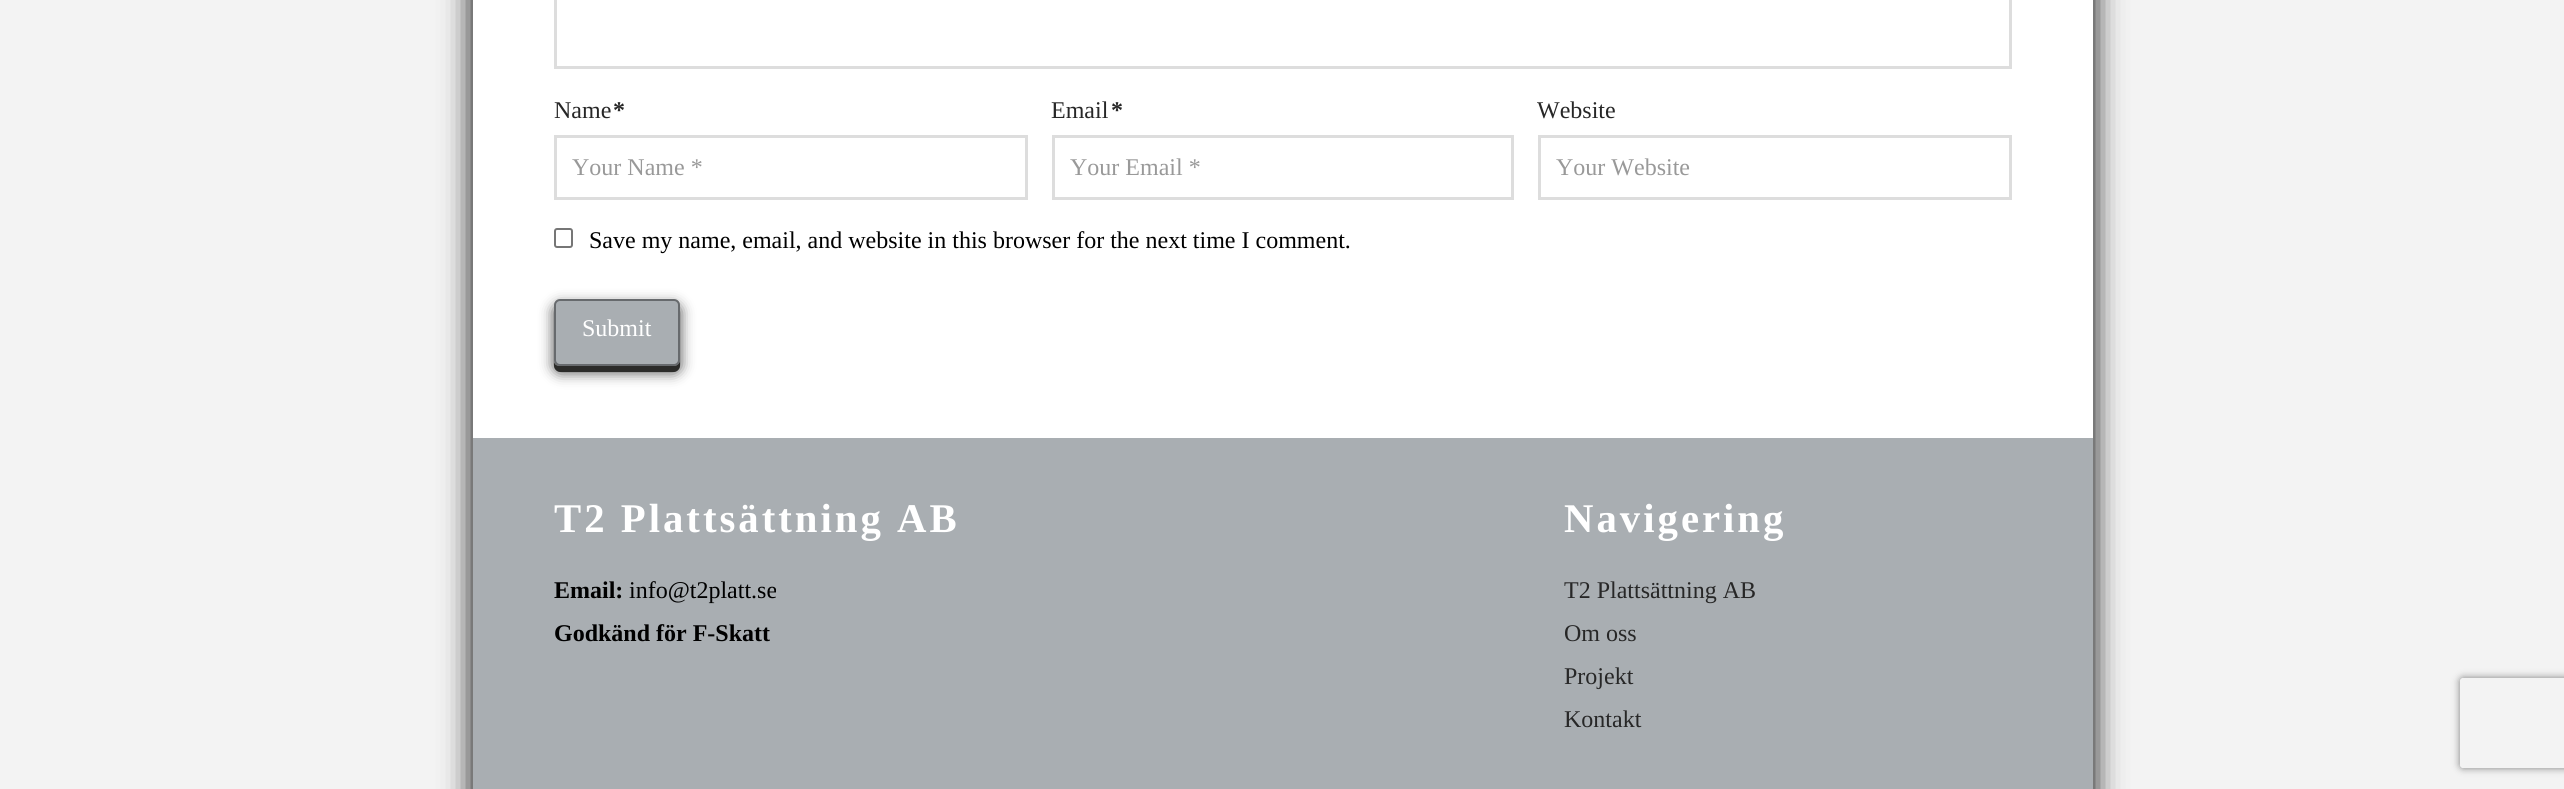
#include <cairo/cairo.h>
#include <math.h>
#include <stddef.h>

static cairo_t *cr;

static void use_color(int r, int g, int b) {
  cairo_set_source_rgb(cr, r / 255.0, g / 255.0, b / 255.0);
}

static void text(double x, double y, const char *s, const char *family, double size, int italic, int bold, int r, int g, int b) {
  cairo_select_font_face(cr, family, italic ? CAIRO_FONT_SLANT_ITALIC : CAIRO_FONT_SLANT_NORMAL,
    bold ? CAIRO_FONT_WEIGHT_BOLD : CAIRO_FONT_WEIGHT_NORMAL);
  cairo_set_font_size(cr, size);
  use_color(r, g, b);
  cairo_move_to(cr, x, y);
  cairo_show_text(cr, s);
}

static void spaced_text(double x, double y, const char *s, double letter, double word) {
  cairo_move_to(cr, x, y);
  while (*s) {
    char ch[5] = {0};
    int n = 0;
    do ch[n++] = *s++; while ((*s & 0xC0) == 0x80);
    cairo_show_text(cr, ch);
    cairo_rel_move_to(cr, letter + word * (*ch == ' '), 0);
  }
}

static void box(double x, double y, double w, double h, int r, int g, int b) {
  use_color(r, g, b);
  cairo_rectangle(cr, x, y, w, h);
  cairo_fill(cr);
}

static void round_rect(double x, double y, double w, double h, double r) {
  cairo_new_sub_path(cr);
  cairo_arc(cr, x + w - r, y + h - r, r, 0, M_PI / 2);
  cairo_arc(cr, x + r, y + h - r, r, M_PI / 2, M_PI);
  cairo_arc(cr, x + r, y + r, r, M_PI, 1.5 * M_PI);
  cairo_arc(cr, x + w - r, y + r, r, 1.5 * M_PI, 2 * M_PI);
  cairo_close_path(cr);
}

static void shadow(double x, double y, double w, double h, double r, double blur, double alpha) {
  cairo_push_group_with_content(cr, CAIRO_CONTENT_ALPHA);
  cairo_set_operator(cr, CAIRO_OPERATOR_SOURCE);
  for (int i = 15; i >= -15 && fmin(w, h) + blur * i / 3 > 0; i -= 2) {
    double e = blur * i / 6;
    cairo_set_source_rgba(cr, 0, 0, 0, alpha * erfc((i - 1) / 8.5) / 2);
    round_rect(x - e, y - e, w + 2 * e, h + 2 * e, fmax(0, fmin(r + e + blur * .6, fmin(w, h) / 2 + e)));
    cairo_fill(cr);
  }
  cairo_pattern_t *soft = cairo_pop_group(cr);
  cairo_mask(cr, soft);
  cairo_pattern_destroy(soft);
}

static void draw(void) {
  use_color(243, 243, 243);
  cairo_paint(cr);
  use_color(0, 0, 0);
  shadow(473, -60, 1620, 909, 15, 15, 1);
  box(473, 0, 1620, 438, 255, 255, 255);
  cairo_rectangle(cr, 555.5, -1.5, 1455, 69);
  use_color(221, 221, 221);
  cairo_set_line_width(cr, 3);
  cairo_stroke(cr);
  cairo_rectangle(cr, 555.5, 136.5, 471, 62);
  cairo_stroke(cr);
  cairo_rectangle(cr, 1053.5, 136.5, 459, 62);
  cairo_stroke(cr);
  cairo_rectangle(cr, 1539.5, 136.5, 471, 62);
  cairo_stroke(cr);
  round_rect(555, 229, 17, 18, 2);
  use_color(118, 118, 118);
  cairo_set_line_width(cr, 2);
  cairo_stroke(cr);
  use_color(0, 0, 0);
  shadow(554, 305, 126, 67, 6, 7, 0.75);
  use_color(43, 43, 41);
  cairo_new_path(cr);
  cairo_move_to(cr, 554, 362);
  cairo_line_to(cr, 554, 366);
  cairo_curve_to(cr, 554, 369, 557, 372, 560, 372);
  cairo_line_to(cr, 674, 372);
  cairo_curve_to(cr, 677, 372, 680, 369, 680, 366);
  cairo_line_to(cr, 680, 311);
  cairo_line_to(cr, 680, 309);
  cairo_line_to(cr, 680, 360);
  cairo_curve_to(cr, 680, 363, 677, 366, 674, 366);
  cairo_line_to(cr, 560, 366);
  cairo_curve_to(cr, 557, 366, 555, 365, 554, 362);
  cairo_close_path(cr);
  cairo_fill(cr);
  use_color(169, 174, 178);
  round_rect(555, 300, 124, 65, 5);
  cairo_fill_preserve(cr);
  use_color(103, 106, 109);
  cairo_stroke(cr);
  box(473, 438, 1620, 351, 169, 174, 178);
  cairo_save(cr);
  cairo_set_fill_rule(cr, CAIRO_FILL_RULE_EVEN_ODD);
  cairo_new_path(cr);
  cairo_move_to(cr, 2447, 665);
  cairo_line_to(cr, 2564, 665);
  cairo_line_to(cr, 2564, 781);
  cairo_line_to(cr, 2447, 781);
  cairo_close_path(cr);
  cairo_move_to(cr, 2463, 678);
  cairo_line_to(cr, 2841, 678);
  cairo_curve_to(cr, 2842.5, 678, 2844, 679.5, 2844, 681);
  cairo_line_to(cr, 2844, 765);
  cairo_curve_to(cr, 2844, 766.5, 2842.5, 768, 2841, 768);
  cairo_line_to(cr, 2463, 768);
  cairo_curve_to(cr, 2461.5, 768, 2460, 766.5, 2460, 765);
  cairo_line_to(cr, 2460, 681);
  cairo_curve_to(cr, 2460, 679.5, 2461.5, 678, 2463, 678);
  cairo_close_path(cr);
  cairo_clip(cr);
  use_color(128, 128, 128);
  shadow(2460, 678, 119, 90, 3, 4, 1);
  cairo_restore(cr);
  text(554, 118, "Name", "Liberation Serif", 24, 0, 0, 39, 39, 39);
  text(613, 118, "*", "Liberation Serif", 24, 0, 1, 39, 39, 39);
  text(572, 175, "Your Name *", "Liberation Serif", 24, 0, 0, 153, 153, 153);
  text(1051, 118, "Email", "Liberation Serif", 24, 0, 0, 39, 39, 39);
  text(1111, 118, "*", "Liberation Serif", 24, 0, 1, 39, 39, 39);
  text(1070, 175, "Your Email *", "Liberation Serif", 24, 0, 0, 153, 153, 153);
  text(1537, 118, "Website", "Liberation Serif", 24, 0, 0, 39, 39, 39);
  text(1556, 175, "Your Website", "Liberation Serif", 24, 0, 0, 153, 153, 153);
  text(589, 248, "Save my name, email, and website in this browser for the next time I comment.", "Liberation Serif", 24, 0, 0, 0, 0, 0);
  text(582, 336, "Submit", "Liberation Serif", 24, 0, 0, 255, 255, 255);
  cairo_select_font_face(cr, "Liberation Serif", CAIRO_FONT_SLANT_NORMAL, CAIRO_FONT_WEIGHT_BOLD);
  cairo_set_font_size(cr, 40.75);
  spaced_text(554, 532, "T2 Plattsättning AB", 3, 0);
  text(554, 598, "Email:", "Liberation Serif", 24, 0, 1, 0, 0, 0);
  text(629, 598, "info@t2platt.se", "Liberation Serif", 24, 0, 0, 0, 0, 0);
  text(554, 641, "Godkänd för F-Skatt", "Liberation Serif", 24, 0, 1, 0, 0, 0);
  cairo_set_font_size(cr, 40.75);
  use_color(255, 255, 255);
  spaced_text(1564, 532, "Navigering", 3, 0);
  text(1564, 598, "T2 Plattsättning AB", "Liberation Serif", 24, 0, 0, 39, 39, 39);
  text(1564, 641, "Om oss", "Liberation Serif", 24, 0, 0, 39, 39, 39);
  text(1564, 684, "Projekt", "Liberation Serif", 24, 0, 0, 39, 39, 39);
  text(1564, 727, "Kontakt", "Liberation Serif", 24, 0, 0, 39, 39, 39);
}

int main(void) {
  cairo_surface_t *surface = cairo_image_surface_create(CAIRO_FORMAT_RGB24, 2564, 789);
  cr = cairo_create(surface);
  cairo_font_options_t *options = cairo_font_options_create();
  cairo_font_options_set_hint_metrics(options, CAIRO_HINT_METRICS_OFF);
  cairo_font_options_set_hint_style(options, CAIRO_HINT_STYLE_NONE);
  cairo_set_font_options(cr, options);
  cairo_set_miter_limit(cr, 4);
  draw();
  cairo_surface_write_to_png(surface, "out.png");
  cairo_font_options_destroy(options);
  cairo_destroy(cr);
  cairo_surface_destroy(surface);
  return 0;
}
